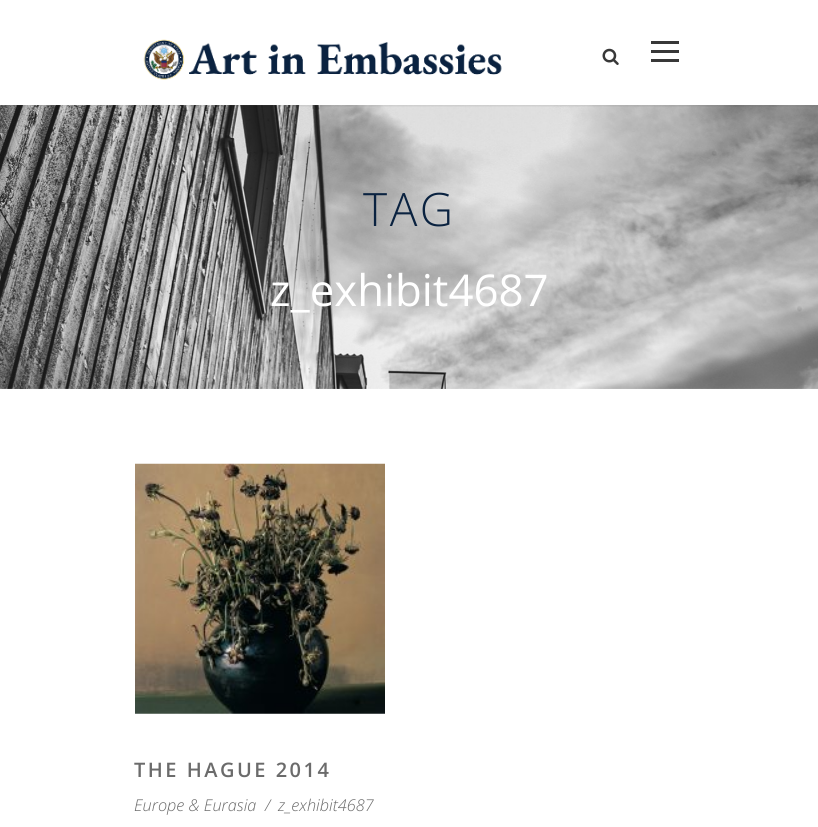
#include <cairo/cairo.h>
#include <math.h>
#include <stddef.h>

static cairo_t *cr;

static void use_color(int r, int g, int b) {
  cairo_set_source_rgb(cr, r / 255.0, g / 255.0, b / 255.0);
}

static void text(double x, double y, const char *s, const char *family, double size, int italic, int bold, int r, int g, int b) {
  cairo_select_font_face(cr, family, italic ? CAIRO_FONT_SLANT_ITALIC : CAIRO_FONT_SLANT_NORMAL,
    bold ? CAIRO_FONT_WEIGHT_BOLD : CAIRO_FONT_WEIGHT_NORMAL);
  cairo_set_font_size(cr, size);
  use_color(r, g, b);
  cairo_move_to(cr, x, y);
  cairo_show_text(cr, s);
}

static void spaced_text(double x, double y, const char *s, double letter, double word) {
  cairo_move_to(cr, x, y);
  while (*s) {
    char ch[5] = {0};
    int n = 0;
    do ch[n++] = *s++; while ((*s & 0xC0) == 0x80);
    cairo_show_text(cr, ch);
    cairo_rel_move_to(cr, letter + word * (*ch == ' '), 0);
  }
}

static void box(double x, double y, double w, double h, int r, int g, int b) {
  use_color(r, g, b);
  cairo_rectangle(cr, x, y, w, h);
  cairo_fill(cr);
}

static void round_rect(double x, double y, double w, double h, double r) {
  cairo_new_sub_path(cr);
  cairo_arc(cr, x + w - r, y + h - r, r, 0, M_PI / 2);
  cairo_arc(cr, x + r, y + h - r, r, M_PI / 2, M_PI);
  cairo_arc(cr, x + r, y + r, r, M_PI, 1.5 * M_PI);
  cairo_arc(cr, x + w - r, y + r, r, 1.5 * M_PI, 2 * M_PI);
  cairo_close_path(cr);
}

static void shadow(double x, double y, double w, double h, double r, double blur, double alpha) {
  cairo_push_group_with_content(cr, CAIRO_CONTENT_ALPHA);
  cairo_set_operator(cr, CAIRO_OPERATOR_SOURCE);
  for (int i = 15; i >= -15 && fmin(w, h) + blur * i / 3 > 0; i -= 2) {
    double e = blur * i / 6;
    cairo_set_source_rgba(cr, 0, 0, 0, alpha * erfc((i - 1) / 8.5) / 2);
    round_rect(x - e, y - e, w + 2 * e, h + 2 * e, fmax(0, fmin(r + e + blur * .6, fmin(w, h) / 2 + e)));
    cairo_fill(cr);
  }
  cairo_pattern_t *soft = cairo_pop_group(cr);
  cairo_mask(cr, soft);
  cairo_pattern_destroy(soft);
}

static void picture(const char *path, double x, double y, double w, double h) {
  cairo_surface_t *image = cairo_image_surface_create_from_png(path);
  cairo_save(cr);
  cairo_set_source_surface(cr, image, x, y);
  cairo_rectangle(cr, x, y, w, h);
  cairo_fill(cr);
  cairo_restore(cr);
  cairo_surface_destroy(image);
}

static void draw(void) {
  use_color(255, 255, 255);
  cairo_paint(cr);
  picture("img_03.png", 0, 105, 818, 284);
  cairo_save(cr);
  cairo_rectangle(cr, 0, 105, 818, 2);
  cairo_clip(cr);
  use_color(0, 0, 0);
  shadow(0, 1, 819, 105, 0, 1, 0.1);
  cairo_restore(cr);
  picture("img_01.png", 143, 39, 359, 41);
  picture("img_02.png", 602, 48, 17, 17);
  box(651, 41, 28, 3, 56, 56, 56);
  box(651, 50, 28, 3, 56, 56, 56);
  box(651, 59, 28, 3, 56, 56, 56);
  picture("img_04.png", 135, 463, 250, 251);
  cairo_select_font_face(cr, "Open Sans Light", CAIRO_FONT_SLANT_NORMAL, CAIRO_FONT_WEIGHT_NORMAL);
  cairo_set_font_size(cr, 46);
  use_color(10, 34, 64);
  spaced_text(363, 226, "TAG", 2.5, 0);
  text(270, 306, "z_exhibit4687", "Open Sans", 43.75, 0, 0, 255, 255, 255);
  cairo_select_font_face(cr, "Open Sans SemiBold", CAIRO_FONT_SLANT_NORMAL, CAIRO_FONT_WEIGHT_NORMAL);
  cairo_set_font_size(cr, 20);
  use_color(107, 107, 107);
  spaced_text(134, 777, "THE HAGUE 2014", 2.5, 0);
  text(134, 811, "Europe & Eurasia", "Open Sans Light", 16.25, 1, 0, 107, 107, 107);
  text(265, 811, "/", "Open Sans Light", 16.25, 1, 0, 107, 107, 107);
  text(278, 811, "z_exhibit4687", "Open Sans Light", 16.25, 1, 0, 107, 107, 107);
}

int main(void) {
  cairo_surface_t *surface = cairo_image_surface_create(CAIRO_FORMAT_RGB24, 818, 827);
  cr = cairo_create(surface);
  cairo_font_options_t *options = cairo_font_options_create();
  cairo_font_options_set_hint_metrics(options, CAIRO_HINT_METRICS_OFF);
  cairo_font_options_set_hint_style(options, CAIRO_HINT_STYLE_NONE);
  cairo_set_font_options(cr, options);
  cairo_set_miter_limit(cr, 4);
  draw();
  cairo_surface_write_to_png(surface, "out.png");
  cairo_font_options_destroy(options);
  cairo_destroy(cr);
  cairo_surface_destroy(surface);
  return 0;
}
